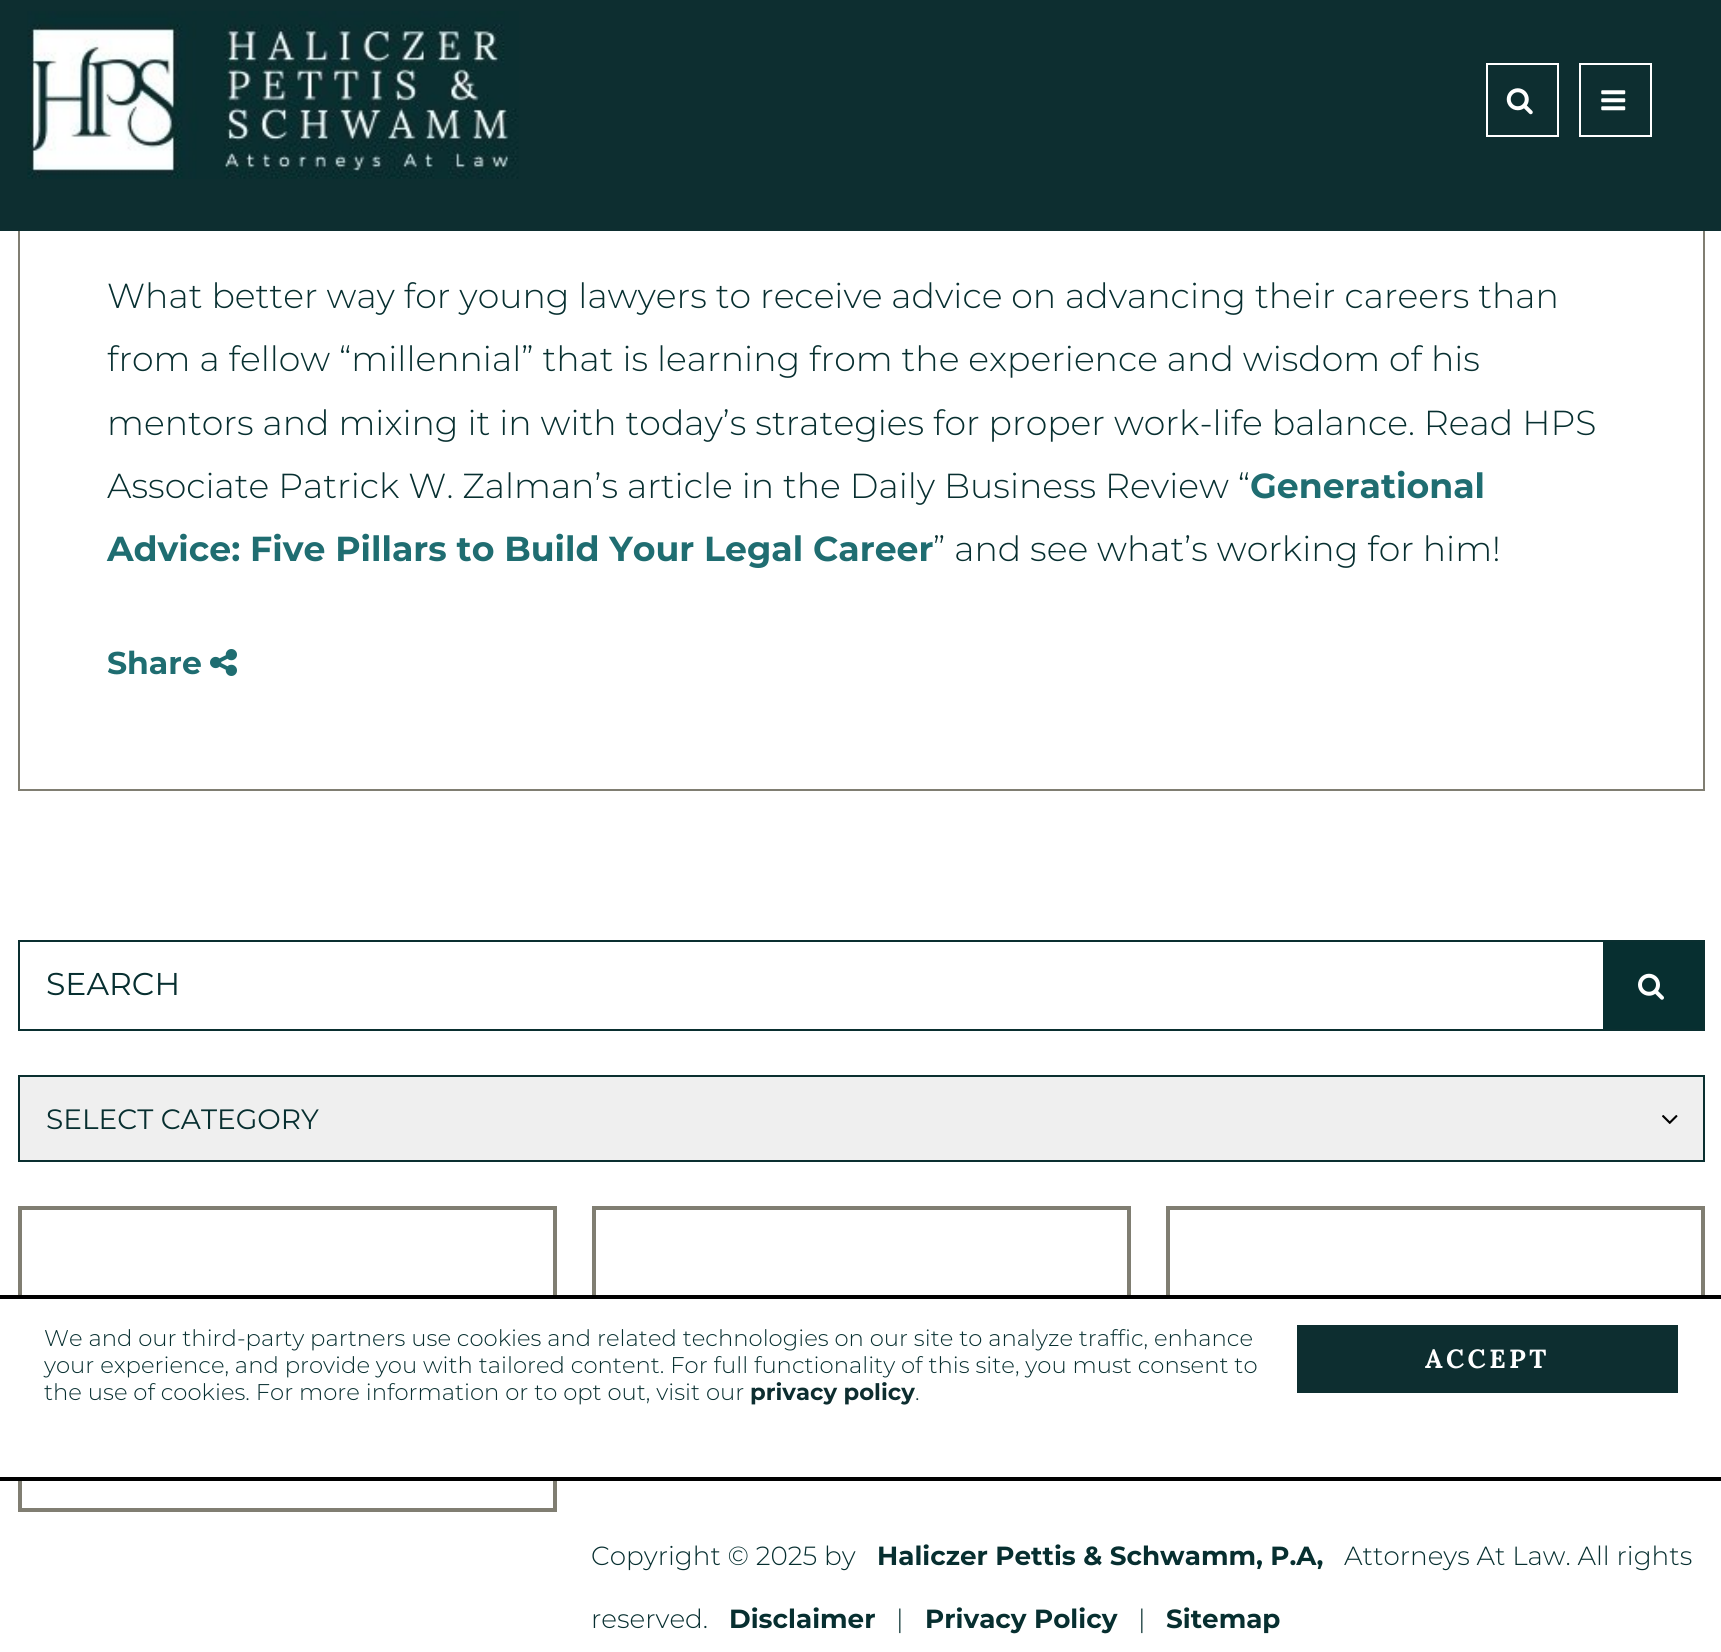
#include <cairo/cairo.h>
#include <math.h>
#include <stddef.h>

static cairo_t *cr;

static void use_color(int r, int g, int b) {
  cairo_set_source_rgb(cr, r / 255.0, g / 255.0, b / 255.0);
}

static void text(double x, double y, const char *s, const char *family, double size, int italic, int bold, int r, int g, int b) {
  cairo_select_font_face(cr, family, italic ? CAIRO_FONT_SLANT_ITALIC : CAIRO_FONT_SLANT_NORMAL,
    bold ? CAIRO_FONT_WEIGHT_BOLD : CAIRO_FONT_WEIGHT_NORMAL);
  cairo_set_font_size(cr, size);
  use_color(r, g, b);
  cairo_move_to(cr, x, y);
  cairo_show_text(cr, s);
}

static void spaced_text(double x, double y, const char *s, double letter, double word) {
  cairo_move_to(cr, x, y);
  while (*s) {
    char ch[5] = {0};
    int n = 0;
    do ch[n++] = *s++; while ((*s & 0xC0) == 0x80);
    cairo_show_text(cr, ch);
    cairo_rel_move_to(cr, letter + word * (*ch == ' '), 0);
  }
}

static void box(double x, double y, double w, double h, int r, int g, int b) {
  use_color(r, g, b);
  cairo_rectangle(cr, x, y, w, h);
  cairo_fill(cr);
}

static void picture(const char *path, double x, double y, double w, double h) {
  cairo_surface_t *image = cairo_image_surface_create_from_png(path);
  cairo_save(cr);
  cairo_set_source_surface(cr, image, x, y);
  cairo_rectangle(cr, x, y, w, h);
  cairo_fill(cr);
  cairo_restore(cr);
  cairo_surface_destroy(image);
}

static void draw(void) {
  use_color(255, 255, 255);
  cairo_paint(cr);
  cairo_rectangle(cr, 19, -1, 1685, 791);
  use_color(128, 126, 114);
  cairo_stroke(cr);
  box(0, 0, 1721, 231, 13, 46, 48);
  picture("img_01.png", 27, 11, 492, 168);
  cairo_rectangle(cr, 1487, 64, 71, 72);
  use_color(255, 255, 255);
  cairo_stroke(cr);
  picture("img_02.png", 1506, 88, 27, 27);
  cairo_rectangle(cr, 1580, 64, 71, 72);
  cairo_stroke(cr);
  picture("img_03.png", 1601, 90, 25, 21);
  picture("img_04.png", 210, 649, 27, 27);
  cairo_rectangle(cr, 19, 941, 1685, 89);
  use_color(10, 47, 48);
  cairo_stroke(cr);
  box(1603, 942, 100, 87, 7, 47, 48);
  picture("img_05.png", 1638, 973, 26, 27);
  use_color(239, 239, 239);
  cairo_rectangle(cr, 19, 1076, 1685, 85);
  cairo_fill_preserve(cr);
  use_color(10, 47, 48);
  cairo_stroke(cr);
  picture("img_06.png", 1662, 1115, 16, 9);
  cairo_rectangle(cr, 20, 1208, 535, 302);
  use_color(128, 126, 114);
  cairo_set_line_width(cr, 4);
  cairo_stroke(cr);
  cairo_rectangle(cr, 594, 1208, 535, 244);
  cairo_stroke(cr);
  cairo_rectangle(cr, 1168, 1208, 535, 243);
  cairo_stroke(cr);
  box(18, 1299, 1687, 178, 255, 255, 255);
  box(0, 1295, 1721, 4, 0, 0, 0);
  box(0, 1477, 1721, 4, 0, 0, 0);
  box(1297, 1325, 381, 68, 13, 46, 48);
  text(107, 308, "What better way for young lawyers to receive advice on advancing their careers than", "Montserrat Light", 34.7, 0, 0, 7, 47, 48);
  text(107, 371, "from a fellow “millennial” that is learning from the experience and wisdom of his", "Montserrat Light", 34.7, 0, 0, 7, 47, 48);
  text(107, 435, "mentors and mixing it in with today’s strategies for proper work-life balance. Read HPS", "Montserrat Light", 34.7, 0, 0, 7, 47, 48);
  text(107, 498, "Associate Patrick W. Zalman’s article in the Daily Business Review “", "Montserrat Light", 34.7, 0, 0, 7, 47, 48);
  text(1250, 498, "Generational", "Montserrat", 34.7, 0, 1, 31, 109, 113);
  text(107, 561, "Advice: Five Pillars to Build Your Legal Career", "Montserrat", 34.7, 0, 1, 31, 109, 113);
  text(933, 561, "” and see what’s working for him!", "Montserrat Light", 34.7, 0, 0, 7, 47, 48);
  text(107, 674, "Share", "Montserrat", 31.5, 0, 1, 31, 109, 113);
  text(46, 995, "SEARCH", "Montserrat", 31.5, 0, 0, 7, 47, 48);
  text(46, 1129, "SELECT CATEGORY", "Montserrat", 28, 0, 0, 7, 47, 48);
  text(44, 1346, "We and our third-party partners use cookies and related technologies on our site to analyze traffic, enhance", "Montserrat Light", 22.75, 0, 0, 7, 47, 48);
  text(44, 1373, "your experience, and provide you with tailored content. For full functionality of this site, you must consent to", "Montserrat Light", 22.75, 0, 0, 7, 47, 48);
  text(44, 1400, "the use of cookies. For more information or to opt out, visit our", "Montserrat Light", 22.75, 0, 0, 7, 47, 48);
  text(750, 1400, "privacy policy", "Montserrat", 22.75, 0, 1, 13, 46, 48);
  text(915, 1400, ".", "Montserrat Light", 22.75, 0, 0, 7, 47, 48);
  cairo_select_font_face(cr, "Lora", CAIRO_FONT_SLANT_NORMAL, CAIRO_FONT_WEIGHT_BOLD);
  cairo_set_font_size(cr, 26.25);
  use_color(255, 255, 255);
  spaced_text(1425, 1368, "ACCEPT", 3.5, 0);
  text(591, 1565, "Copyright © 2025 by", "Montserrat Light", 26.25, 0, 0, 7, 47, 48);
  text(877, 1565, "Haliczer Pettis & Schwamm, P.A,", "Montserrat", 26.25, 0, 1, 7, 47, 48);
  text(1344, 1565, "Attorneys At Law. All rights", "Montserrat Light", 26.25, 0, 0, 7, 47, 48);
  text(591, 1628, "reserved.", "Montserrat Light", 26.25, 0, 0, 7, 47, 48);
  text(729, 1628, "Disclaimer", "Montserrat", 26.25, 0, 1, 7, 47, 48);
  text(896, 1628, "|", "Montserrat Light", 26.25, 0, 0, 7, 47, 48);
  text(925, 1628, "Privacy Policy", "Montserrat", 26.25, 0, 1, 7, 47, 48);
  text(1138, 1628, "|", "Montserrat Light", 26.25, 0, 0, 7, 47, 48);
  text(1166, 1628, "Sitemap", "Montserrat", 26.25, 0, 1, 7, 47, 48);
}

int main(void) {
  cairo_surface_t *surface = cairo_image_surface_create(CAIRO_FORMAT_RGB24, 1721, 1652);
  cr = cairo_create(surface);
  cairo_font_options_t *options = cairo_font_options_create();
  cairo_font_options_set_hint_metrics(options, CAIRO_HINT_METRICS_OFF);
  cairo_font_options_set_hint_style(options, CAIRO_HINT_STYLE_NONE);
  cairo_set_font_options(cr, options);
  cairo_set_miter_limit(cr, 4);
  draw();
  cairo_surface_write_to_png(surface, "out.png");
  cairo_font_options_destroy(options);
  cairo_destroy(cr);
  cairo_surface_destroy(surface);
  return 0;
}
